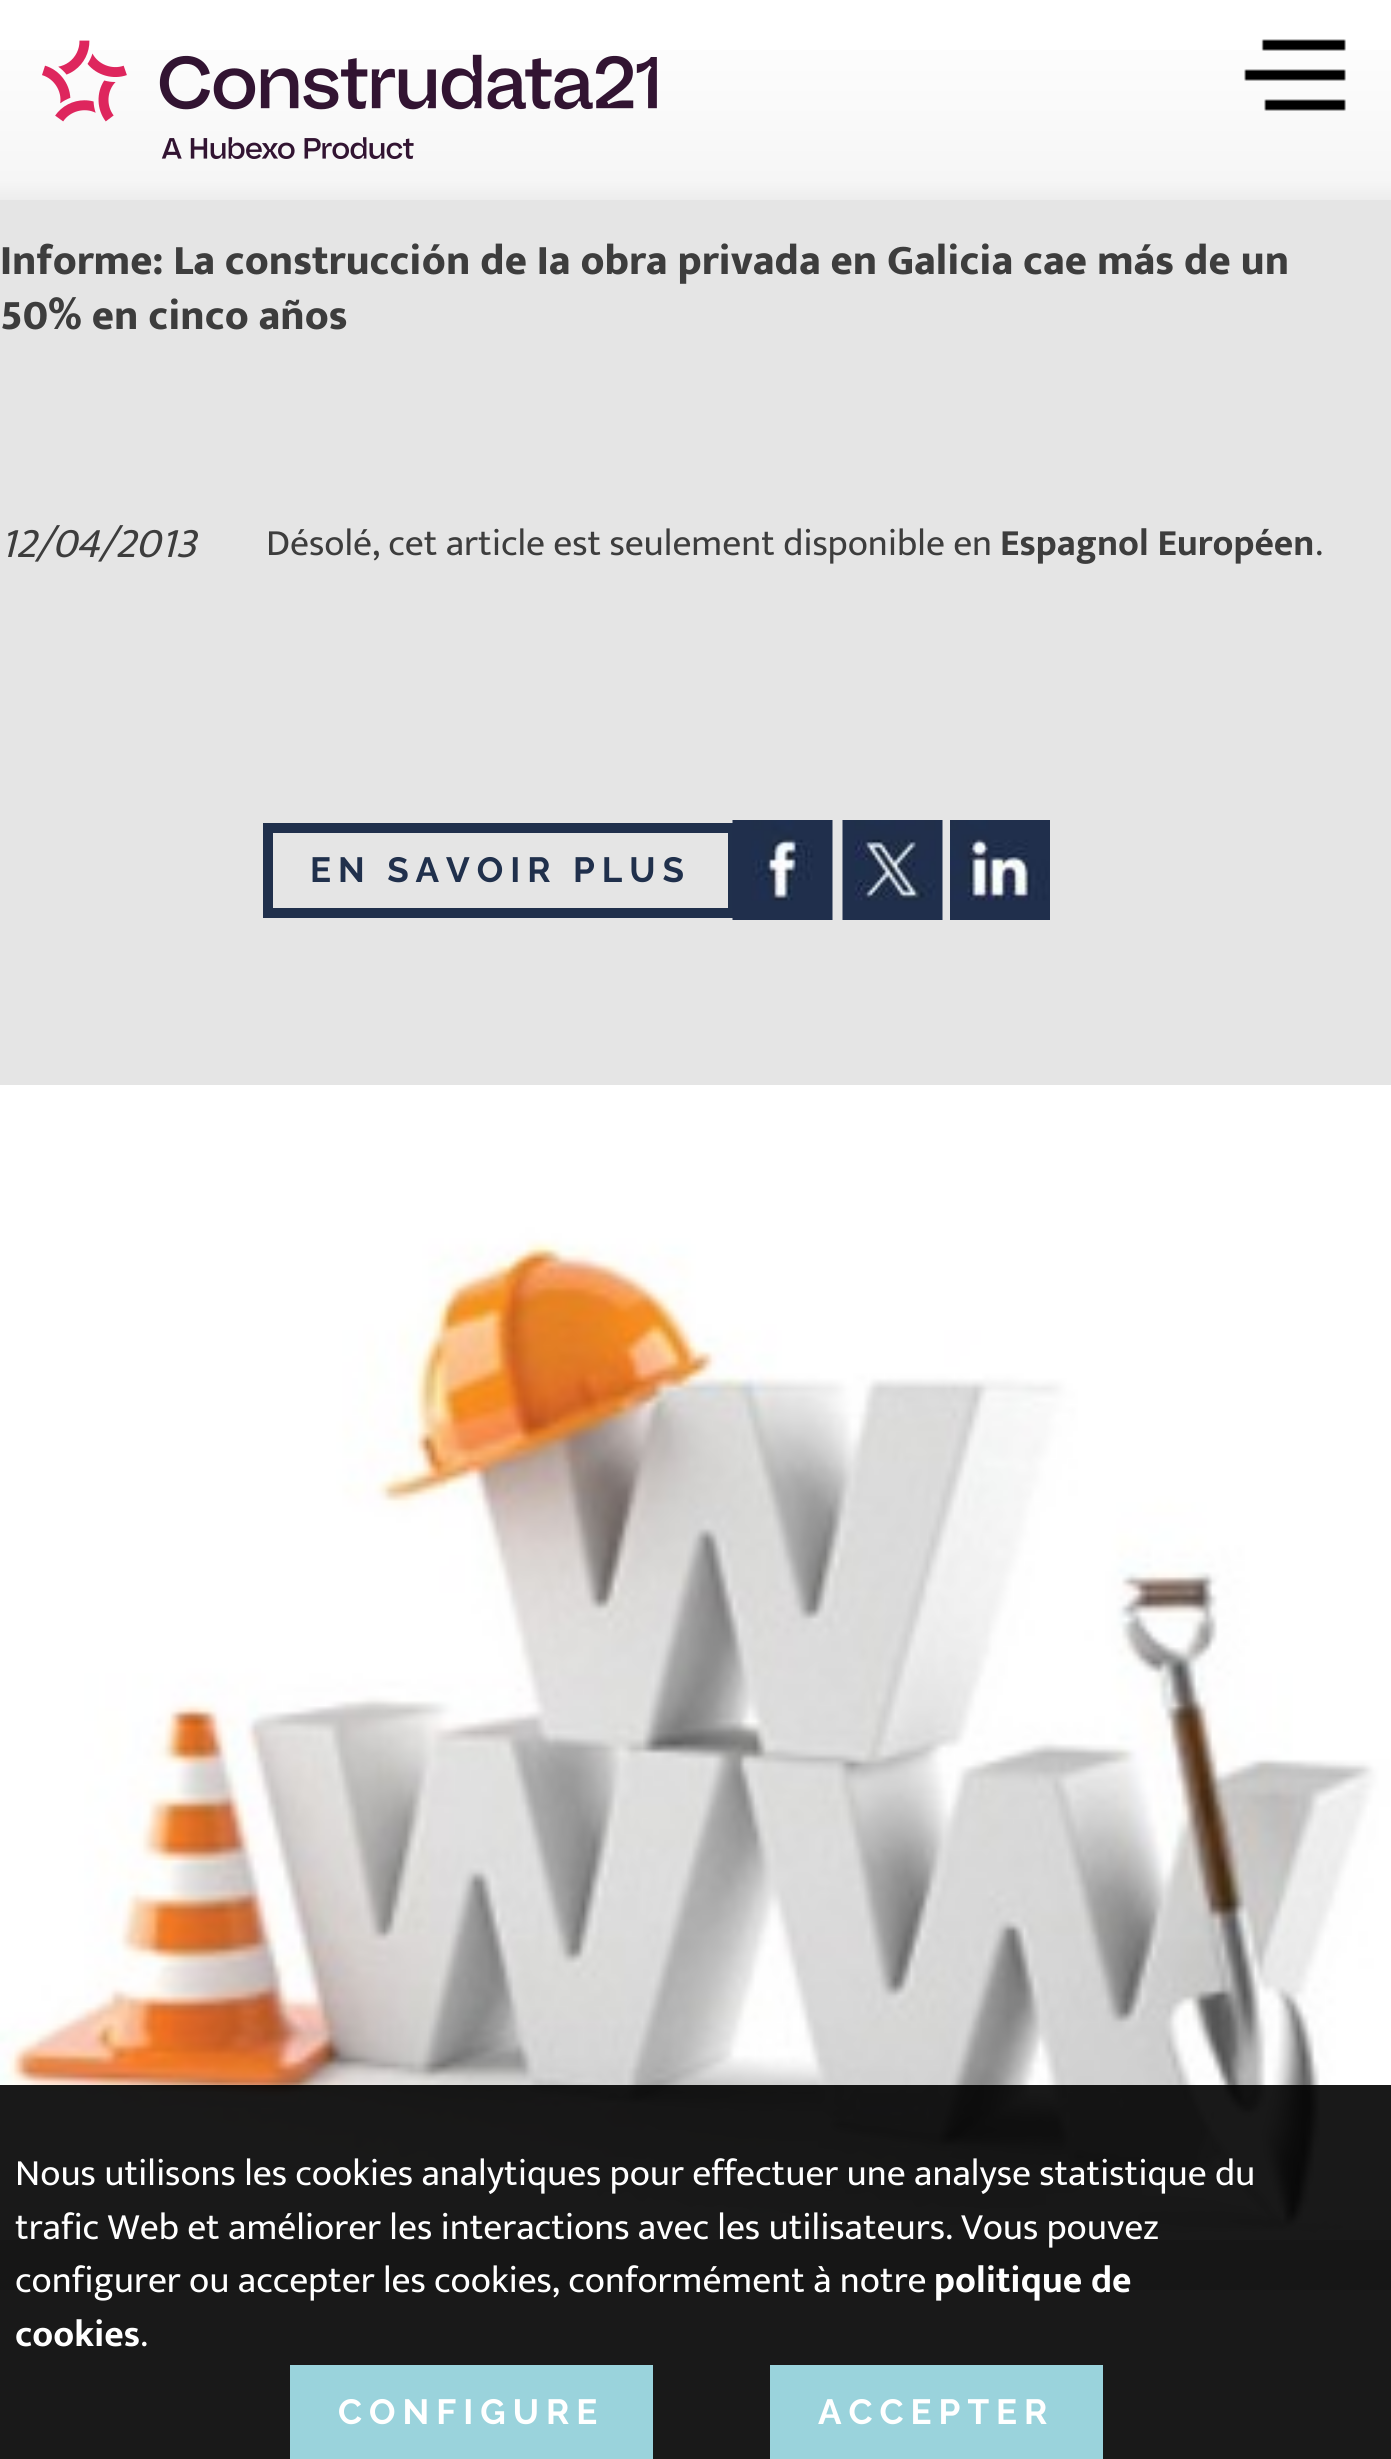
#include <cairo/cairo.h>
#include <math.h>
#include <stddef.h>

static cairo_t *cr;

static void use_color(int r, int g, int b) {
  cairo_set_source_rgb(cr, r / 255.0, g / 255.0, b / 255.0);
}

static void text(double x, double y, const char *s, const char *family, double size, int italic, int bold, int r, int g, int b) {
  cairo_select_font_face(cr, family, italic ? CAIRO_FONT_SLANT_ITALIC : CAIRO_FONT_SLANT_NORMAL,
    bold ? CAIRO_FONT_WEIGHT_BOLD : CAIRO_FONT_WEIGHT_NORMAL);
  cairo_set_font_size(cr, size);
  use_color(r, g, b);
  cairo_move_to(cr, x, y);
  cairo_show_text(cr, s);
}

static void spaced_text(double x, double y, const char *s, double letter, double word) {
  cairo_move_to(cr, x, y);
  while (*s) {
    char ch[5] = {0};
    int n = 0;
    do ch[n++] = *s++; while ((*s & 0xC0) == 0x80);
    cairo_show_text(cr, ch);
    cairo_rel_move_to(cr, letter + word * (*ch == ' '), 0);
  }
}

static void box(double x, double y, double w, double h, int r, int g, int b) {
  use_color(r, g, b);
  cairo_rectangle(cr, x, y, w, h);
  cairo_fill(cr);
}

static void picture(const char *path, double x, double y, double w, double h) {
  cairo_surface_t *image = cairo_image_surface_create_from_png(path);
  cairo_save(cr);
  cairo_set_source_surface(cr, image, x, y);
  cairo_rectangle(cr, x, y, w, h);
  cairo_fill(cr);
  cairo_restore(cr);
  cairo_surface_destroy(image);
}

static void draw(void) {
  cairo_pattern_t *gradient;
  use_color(255, 255, 255);
  cairo_paint(cr);
  gradient = cairo_pattern_create_linear(696, 0, 696, 200);
  cairo_pattern_add_color_stop_rgba(gradient, 0, 1, 1, 1, 1);
  cairo_pattern_add_color_stop_rgba(gradient, 0.9, 0.965, 0.965, 0.965, 1);
  cairo_pattern_add_color_stop_rgba(gradient, 1, 0.929, 0.929, 0.929, 1);
  cairo_set_source(cr, gradient);
  cairo_pattern_destroy(gradient);
  cairo_rectangle(cr, 0, 50, 1391, 150);
  cairo_fill(cr);
  picture("img_01.png", 42, 40, 615, 119);
  picture("img_02.png", 1244, 39, 102, 72);
  box(0, 200, 1391, 2090, 229, 229, 229);
  box(0, 1085, 1391, 75, 255, 255, 255);
  cairo_rectangle(cr, 268, 828, 465, 85);
  use_color(32, 48, 76);
  cairo_set_line_width(cr, 10);
  cairo_stroke(cr);
  picture("img_03.png", 732, 820, 101, 100);
  picture("img_04.png", 842, 820, 101, 100);
  picture("img_05.png", 950, 820, 100, 100);
  picture("img_06.png", 0, 1160, 1391, 1080);
  cairo_set_source_rgba(cr, 0, 0, 0, 0.9);
  cairo_rectangle(cr, 0, 2085, 1391, 374);
  cairo_fill(cr);
  box(290, 2365, 363, 94, 154, 211, 220);
  box(770, 2365, 333, 94, 154, 211, 220);
  text(0, 274, "Informe: La construcción de Ia obra privada en Galicia cae más de un", "Mukta Vaani ExtraBold", 42.5, 0, 0, 61, 61, 61);
  text(0, 329, "50% en cinco años", "Mukta Vaani ExtraBold", 42.5, 0, 0, 61, 61, 61);
  text(0, 557, "12/04/2013", "Mukta Vaani", 42.5, 1, 0, 61, 61, 61);
  text(266, 555, "Désolé, cet article est seulement disponible en", "Mukta Vaani", 37.5, 0, 0, 61, 61, 61);
  text(1000, 555, "Espagnol Européen", "Mukta Vaani", 37.5, 0, 1, 61, 61, 61);
  text(1315, 555, ".", "Mukta Vaani", 37.5, 0, 0, 61, 61, 61);
  cairo_select_font_face(cr, "Raleway Thin", CAIRO_FONT_SLANT_NORMAL, CAIRO_FONT_WEIGHT_NORMAL);
  cairo_set_font_size(cr, 35);
  use_color(32, 48, 76);
  spaced_text(310, 882, "EN SAVOIR PLUS", 7, 0);
  text(15, 2185, "Nous utilisons les cookies analytiques pour effectuer une analyse statistique du", "Mukta Vaani", 37.5, 0, 0, 255, 255, 255);
  text(15, 2239, "trafic Web et améliorer les interactions avec les utilisateurs. Vous pouvez", "Mukta Vaani", 37.5, 0, 0, 255, 255, 255);
  text(15, 2292, "configurer ou accepter les cookies, conformément à notre", "Mukta Vaani", 37.5, 0, 0, 255, 255, 255);
  text(934, 2292, "politique de", "Mukta Vaani", 37.5, 0, 1, 255, 255, 255);
  text(15, 2346, "cookies", "Mukta Vaani", 37.5, 0, 1, 255, 255, 255);
  text(140, 2346, ".", "Mukta Vaani", 37.5, 0, 0, 255, 255, 255);
  cairo_select_font_face(cr, "Raleway Thin", CAIRO_FONT_SLANT_NORMAL, CAIRO_FONT_WEIGHT_NORMAL);
  cairo_set_font_size(cr, 35);
  spaced_text(338, 2424, "CONFIGURE", 7, 0);
  spaced_text(818, 2424, "ACCEPTER", 7, 0);
}

int main(void) {
  cairo_surface_t *surface = cairo_image_surface_create(CAIRO_FORMAT_RGB24, 1391, 2459);
  cr = cairo_create(surface);
  cairo_font_options_t *options = cairo_font_options_create();
  cairo_font_options_set_hint_metrics(options, CAIRO_HINT_METRICS_OFF);
  cairo_font_options_set_hint_style(options, CAIRO_HINT_STYLE_NONE);
  cairo_set_font_options(cr, options);
  cairo_set_miter_limit(cr, 4);
  draw();
  cairo_surface_write_to_png(surface, "out.png");
  cairo_font_options_destroy(options);
  cairo_destroy(cr);
  cairo_surface_destroy(surface);
  return 0;
}
